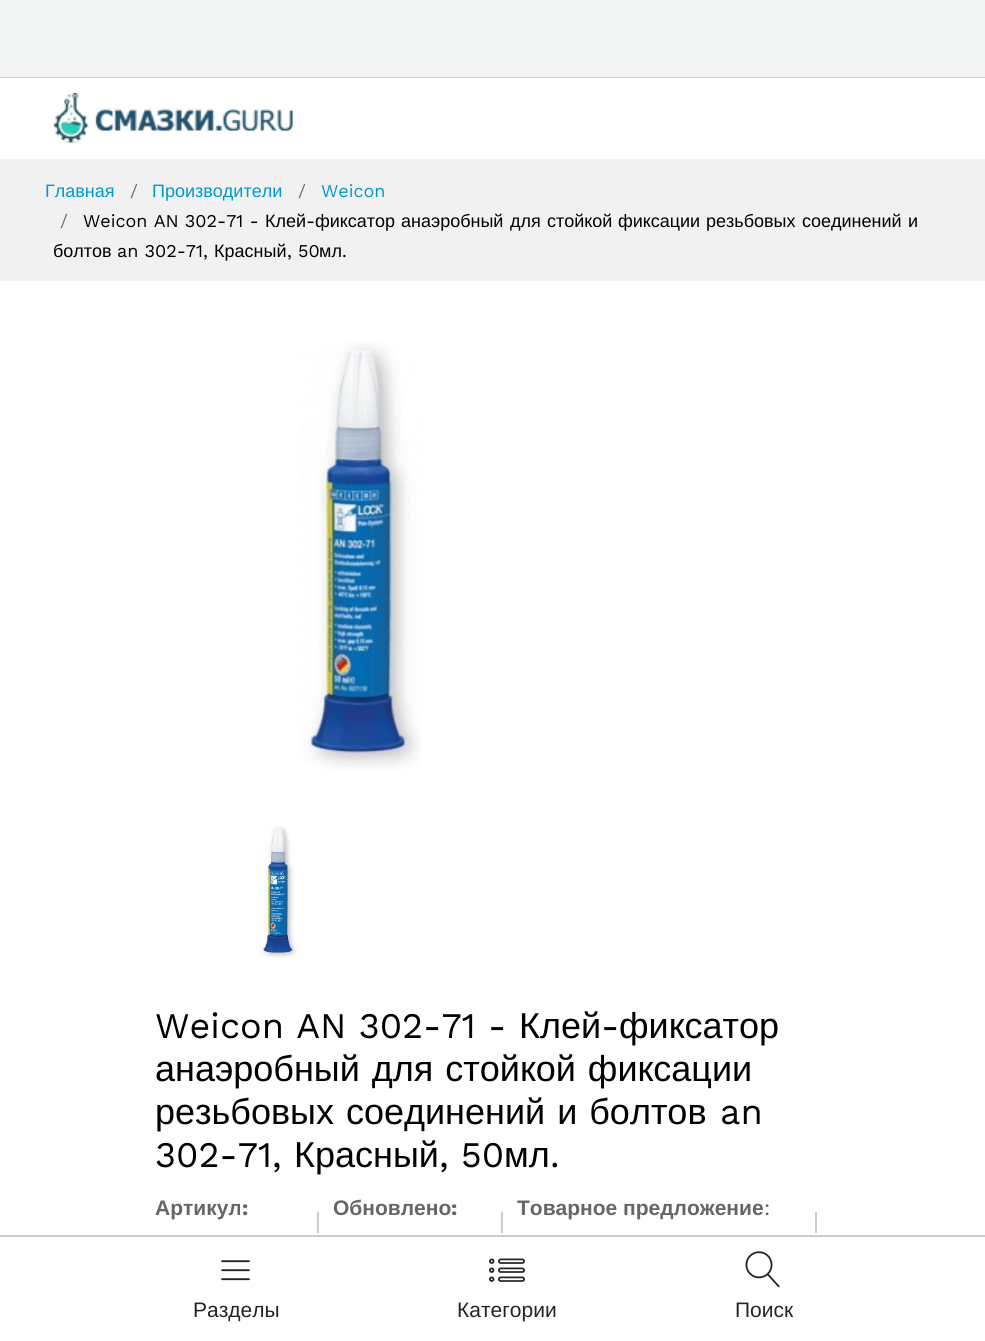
#include <cairo/cairo.h>
#include <math.h>
#include <stddef.h>

static cairo_t *cr;

static void use_color(int r, int g, int b) {
  cairo_set_source_rgb(cr, r / 255.0, g / 255.0, b / 255.0);
}

static void text(double x, double y, const char *s, const char *family, double size, int italic, int bold, int r, int g, int b) {
  cairo_select_font_face(cr, family, italic ? CAIRO_FONT_SLANT_ITALIC : CAIRO_FONT_SLANT_NORMAL,
    bold ? CAIRO_FONT_WEIGHT_BOLD : CAIRO_FONT_WEIGHT_NORMAL);
  cairo_set_font_size(cr, size);
  use_color(r, g, b);
  cairo_move_to(cr, x, y);
  cairo_show_text(cr, s);
}

static void spaced_text(double x, double y, const char *s, double letter, double word) {
  cairo_move_to(cr, x, y);
  while (*s) {
    char ch[5] = {0};
    int n = 0;
    do ch[n++] = *s++; while ((*s & 0xC0) == 0x80);
    cairo_show_text(cr, ch);
    cairo_rel_move_to(cr, letter + word * (*ch == ' '), 0);
  }
}

static void box(double x, double y, double w, double h, int r, int g, int b) {
  use_color(r, g, b);
  cairo_rectangle(cr, x, y, w, h);
  cairo_fill(cr);
}

static void picture(const char *path, double x, double y, double w, double h) {
  cairo_surface_t *image = cairo_image_surface_create_from_png(path);
  cairo_save(cr);
  cairo_set_source_surface(cr, image, x, y);
  cairo_rectangle(cr, x, y, w, h);
  cairo_fill(cr);
  cairo_restore(cr);
  cairo_surface_destroy(image);
}

static void draw(void) {
  use_color(255, 255, 255);
  cairo_paint(cr);
  box(0, 0, 985, 77, 244, 245, 245);
  box(0, 77, 985, 1, 207, 208, 208);
  picture("img_01.png", 53, 93, 241, 51);
  box(0, 159, 985, 122, 241, 241, 241);
  picture("img_02.png", 299, 342, 122, 428);
  picture("img_03.png", 260, 826, 37, 132);
  box(317, 1212, 2, 21, 204, 204, 204);
  box(501, 1212, 2, 21, 204, 204, 204);
  box(815, 1212, 2, 21, 204, 204, 204);
  box(0, 1235, 985, 2, 204, 204, 204);
  picture("img_04.png", 221, 1260, 29, 21);
  picture("img_05.png", 489, 1258, 36, 24);
  picture("img_06.png", 745, 1251, 35, 37);
  text(45, 197, "Главная", "Liberation Sans", 18, 0, 0, 0, 153, 204);
  text(130, 197, "/", "Work Sans", 18, 0, 0, 108, 117, 125);
  text(152, 197, "Производители", "Liberation Sans", 18, 0, 0, 0, 153, 204);
  text(298, 197, "/", "Work Sans", 18, 0, 0, 108, 117, 125);
  text(321, 197, "Weicon", "Work Sans", 18, 0, 0, 0, 153, 204);
  text(60, 227, "/", "Work Sans", 18, 0, 0, 108, 117, 125);
  text(83, 227, "Weicon AN 302-71 -", "Work Sans", 18, 0, 0, 0, 0, 0);
  text(265, 227, "Клей", "Liberation Sans", 18, 0, 0, 0, 0, 0);
  text(306, 227, "-", "Work Sans", 18, 0, 0, 0, 0, 0);
  text(315, 227, "фиксатор", "Liberation Sans", 18, 0, 0, 0, 0, 0);
  text(401, 227, "анаэробный", "Liberation Sans", 18, 0, 0, 0, 0, 0);
  text(510, 227, "для", "Liberation Sans", 18, 0, 0, 0, 0, 0);
  text(547, 227, "стойкой", "Liberation Sans", 18, 0, 0, 0, 0, 0);
  text(618, 227, "фиксации", "Liberation Sans", 18, 0, 0, 0, 0, 0);
  text(706, 227, "резьбовых", "Liberation Sans", 18, 0, 0, 0, 0, 0);
  text(802, 227, "соединений", "Liberation Sans", 18, 0, 0, 0, 0, 0);
  text(908, 227, "и", "Liberation Sans", 18, 0, 0, 0, 0, 0);
  text(53, 257, "болтов", "Liberation Sans", 18, 0, 0, 0, 0, 0);
  text(117, 257, "an 302-71,", "Work Sans", 18, 0, 0, 0, 0, 0);
  text(214, 257, "Красный", "Liberation Sans", 18, 0, 0, 0, 0, 0);
  text(287, 257, ", 50", "Work Sans", 18, 0, 0, 0, 0, 0);
  text(319, 257, "мл", "Liberation Sans", 18, 0, 0, 0, 0, 0);
  text(342, 257, ".", "Work Sans", 18, 0, 0, 0, 0, 0);
  text(155, 1038, "Weicon AN 302-71 -", "Work Sans", 36, 0, 0, 0, 0, 0);
  text(519, 1038, "Клей", "Liberation Sans", 36, 0, 0, 0, 0, 0);
  text(601, 1038, "-", "Work Sans", 36, 0, 0, 0, 0, 0);
  text(619, 1038, "фиксатор", "Liberation Sans", 36, 0, 0, 0, 0, 0);
  spaced_text(155, 1081, "анаэробный для стойкой фиксации", 0, 2);
  spaced_text(155, 1124, "резьбовых соединений и болтов", 0, 2);
  text(720, 1124, "an", "Work Sans", 36, 0, 0, 0, 0, 0);
  text(155, 1167, "302-71,", "Work Sans", 36, 0, 0, 0, 0, 0);
  text(294, 1167, "Красный", "Liberation Sans", 36, 0, 0, 0, 0, 0);
  text(439, 1167, ", 50", "Work Sans", 36, 0, 0, 0, 0, 0);
  text(504, 1167, "мл", "Liberation Sans", 36, 0, 0, 0, 0, 0);
  text(550, 1167, ".", "Work Sans", 36, 0, 0, 0, 0, 0);
  text(155, 1215, "Артикул", "Liberation Sans", 21, 0, 1, 102, 102, 102);
  text(242, 1215, ":", "Work Sans", 21, 0, 1, 102, 102, 102);
  text(333, 1215, "Обновлено", "Liberation Sans", 21, 0, 1, 102, 102, 102);
  text(451, 1215, ":", "Work Sans", 21, 0, 1, 102, 102, 102);
  text(517, 1215, "Товарное предложение", "Liberation Sans", 21, 0, 1, 102, 102, 102);
  text(764, 1215, ":", "Work Sans", 21, 0, 0, 102, 102, 102);
  text(193, 1317, "Разделы", "Liberation Sans", 21, 0, 0, 33, 37, 41);
  text(457, 1317, "Категории", "Liberation Sans", 21, 0, 0, 33, 37, 41);
  text(735, 1317, "Поиск", "Liberation Sans", 21, 0, 0, 33, 37, 41);
}

int main(void) {
  cairo_surface_t *surface = cairo_image_surface_create(CAIRO_FORMAT_RGB24, 985, 1341);
  cr = cairo_create(surface);
  cairo_font_options_t *options = cairo_font_options_create();
  cairo_font_options_set_hint_metrics(options, CAIRO_HINT_METRICS_OFF);
  cairo_font_options_set_hint_style(options, CAIRO_HINT_STYLE_NONE);
  cairo_set_font_options(cr, options);
  cairo_set_miter_limit(cr, 4);
  draw();
  cairo_surface_write_to_png(surface, "out.png");
  cairo_font_options_destroy(options);
  cairo_destroy(cr);
  cairo_surface_destroy(surface);
  return 0;
}
